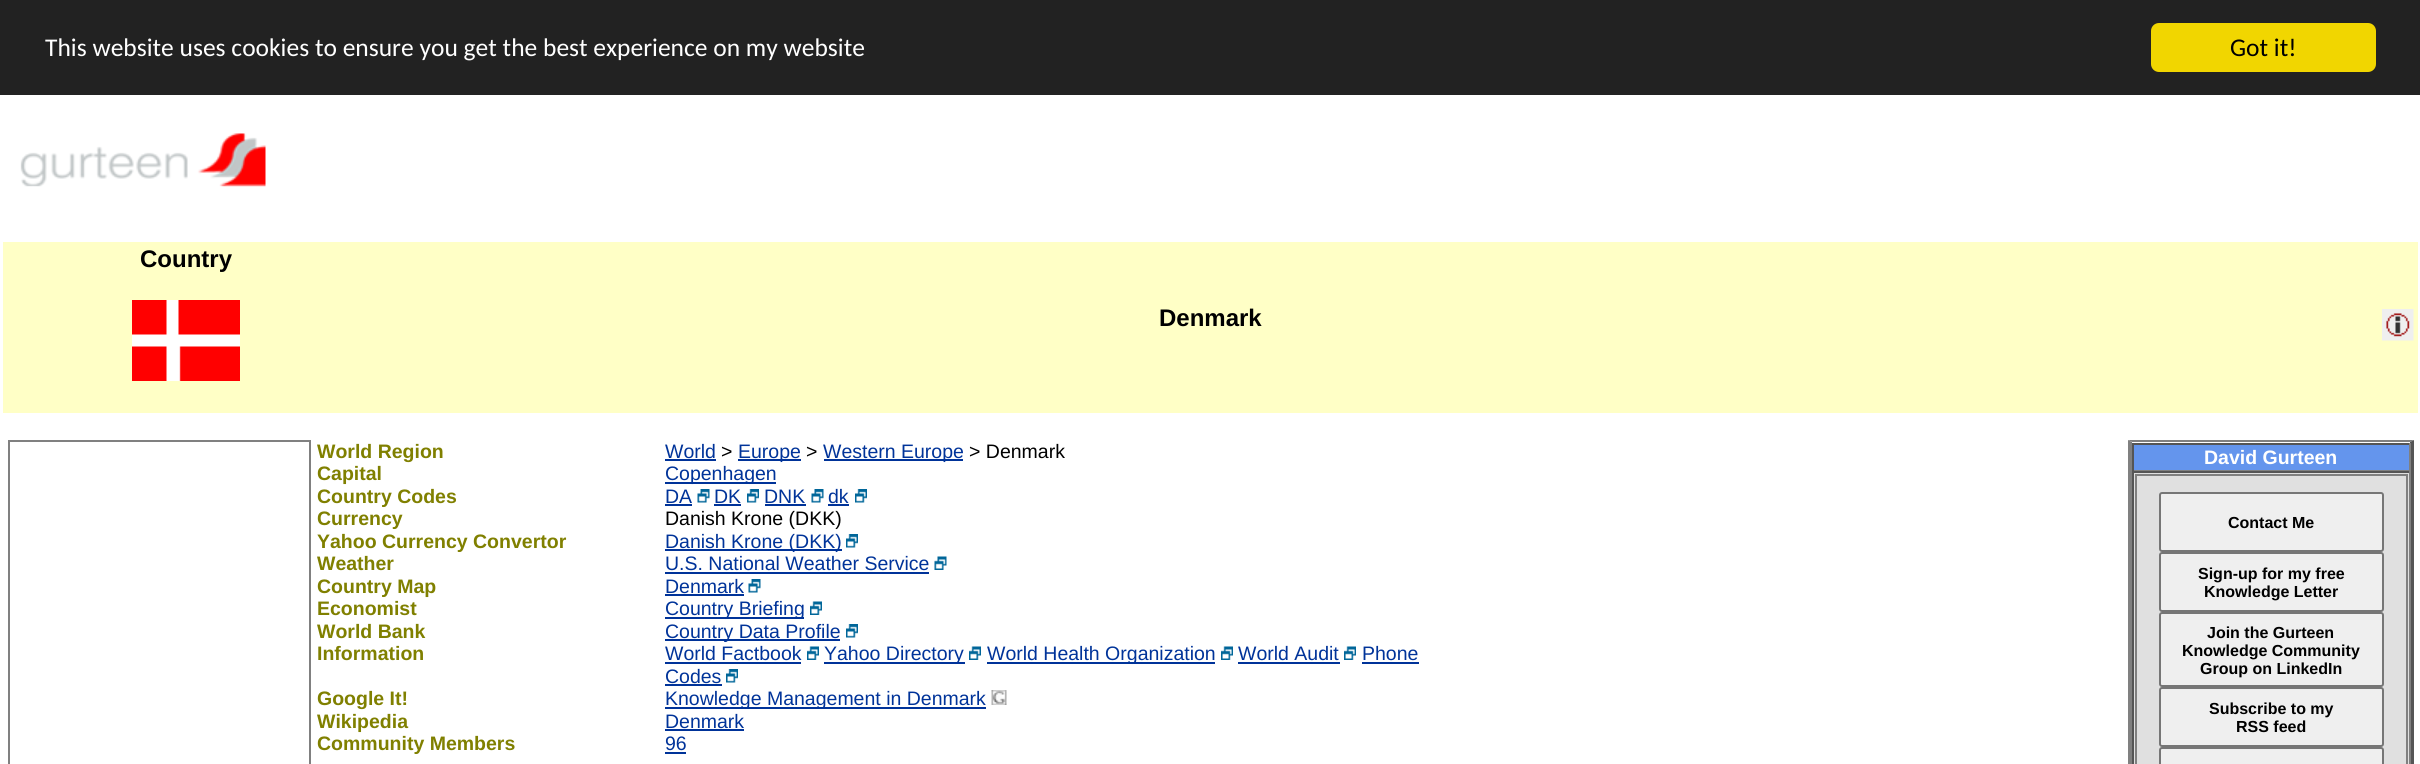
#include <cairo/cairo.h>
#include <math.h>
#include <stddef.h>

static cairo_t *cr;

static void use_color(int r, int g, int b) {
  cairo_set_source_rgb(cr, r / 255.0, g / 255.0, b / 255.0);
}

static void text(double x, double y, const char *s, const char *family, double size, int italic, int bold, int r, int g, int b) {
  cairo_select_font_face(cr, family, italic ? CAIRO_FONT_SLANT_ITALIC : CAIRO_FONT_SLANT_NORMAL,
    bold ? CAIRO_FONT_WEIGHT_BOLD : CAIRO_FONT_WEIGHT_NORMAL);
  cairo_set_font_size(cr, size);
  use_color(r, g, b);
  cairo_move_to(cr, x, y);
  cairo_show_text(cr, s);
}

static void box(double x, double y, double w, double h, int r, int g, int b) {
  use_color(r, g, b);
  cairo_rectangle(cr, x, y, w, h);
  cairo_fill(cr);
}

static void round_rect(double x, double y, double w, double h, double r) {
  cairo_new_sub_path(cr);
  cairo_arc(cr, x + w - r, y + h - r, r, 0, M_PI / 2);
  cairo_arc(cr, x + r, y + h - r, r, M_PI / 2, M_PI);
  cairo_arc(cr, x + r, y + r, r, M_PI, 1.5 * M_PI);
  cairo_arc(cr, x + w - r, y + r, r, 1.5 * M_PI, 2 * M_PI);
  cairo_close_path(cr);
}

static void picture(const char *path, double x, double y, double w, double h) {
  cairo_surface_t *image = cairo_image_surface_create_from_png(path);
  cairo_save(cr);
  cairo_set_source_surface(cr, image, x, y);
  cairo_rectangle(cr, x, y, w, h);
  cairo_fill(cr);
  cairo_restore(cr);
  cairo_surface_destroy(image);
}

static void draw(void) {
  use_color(255, 255, 255);
  cairo_paint(cr);
  box(0, 0, 2420, 95, 34, 34, 34);
  use_color(241, 214, 0);
  round_rect(2151, 23, 225, 49, 8);
  cairo_fill(cr);
  picture("img_01.png", 20, 133, 246, 54);
  box(3, 242, 2415, 171, 255, 255, 198);
  picture("img_02.png", 132, 300, 108, 81);
  picture("img_03.png", 2382, 309, 32, 32);
  cairo_rectangle(cr, 9, 441, 301, 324);
  use_color(128, 128, 128);
  cairo_stroke(cr);
  box(665, 459, 51, 2, 0, 51, 153);
  box(738, 459, 63, 2, 0, 51, 153);
  box(824, 459, 139, 2, 0, 51, 153);
  box(665, 482, 111, 2, 0, 51, 153);
  box(665, 504, 27, 2, 0, 51, 153);
  picture("img_04.png", 697, 489, 13, 14);
  box(714, 504, 27, 2, 0, 51, 153);
  picture("img_05.png", 747, 489, 12, 14);
  box(765, 504, 41, 2, 0, 51, 153);
  picture("img_06.png", 811, 489, 13, 14);
  box(828, 504, 21, 2, 0, 51, 153);
  picture("img_07.png", 855, 489, 12, 14);
  box(665, 549, 177, 2, 0, 51, 153);
  picture("img_07.png", 846, 534, 12, 14);
  box(665, 572, 264, 2, 0, 51, 153);
  picture("img_08.png", 934, 556, 13, 14);
  box(665, 594, 79, 2, 0, 51, 153);
  picture("img_04.png", 748, 579, 13, 14);
  box(665, 617, 139, 2, 0, 51, 153);
  picture("img_09.png", 810, 601, 12, 14);
  box(665, 639, 175, 2, 0, 51, 153);
  picture("img_07.png", 846, 624, 12, 14);
  box(665, 662, 136, 2, 0, 51, 153);
  picture("img_09.png", 807, 646, 12, 14);
  box(824, 662, 141, 2, 0, 51, 153);
  picture("img_09.png", 969, 646, 12, 14);
  box(987, 662, 228, 2, 0, 51, 153);
  picture("img_10.png", 1221, 646, 12, 14);
  box(1238, 662, 102, 2, 0, 51, 153);
  picture("img_10.png", 1344, 646, 12, 14);
  box(1362, 662, 57, 2, 0, 51, 153);
  box(665, 684, 57, 2, 0, 51, 153);
  picture("img_05.png", 726, 669, 12, 14);
  box(665, 707, 321, 2, 0, 51, 153);
  picture("img_11.png", 991, 690, 16, 15);
  box(665, 729, 79, 2, 0, 51, 153);
  box(665, 752, 21, 2, 0, 51, 153);
  use_color(128, 128, 128);
  cairo_new_path(cr);
  cairo_move_to(cr, 2128, 440);
  cairo_line_to(cr, 2414, 440);
  cairo_line_to(cr, 2410, 442);
  cairo_line_to(cr, 2132, 442);
  cairo_close_path(cr);
  cairo_fill(cr);
  use_color(85, 85, 85);
  cairo_new_path(cr);
  cairo_move_to(cr, 2414, 440);
  cairo_line_to(cr, 2414, 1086);
  cairo_line_to(cr, 2410, 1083);
  cairo_line_to(cr, 2410, 442);
  cairo_close_path(cr);
  cairo_fill(cr);
  use_color(128, 128, 128);
  cairo_new_path(cr);
  cairo_move_to(cr, 2128, 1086);
  cairo_line_to(cr, 2128, 440);
  cairo_line_to(cr, 2132, 442);
  cairo_line_to(cr, 2132, 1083);
  cairo_close_path(cr);
  cairo_fill(cr);
  box(2134, 445, 275, 25, 100, 149, 237);
  box(2132, 443, 279, 2, 85, 85, 85);
  box(2409, 443, 2, 28, 128, 128, 128);
  box(2132, 470, 279, 1, 128, 128, 128);
  box(2132, 443, 2, 28, 85, 85, 85);
  box(2134, 473, 275, 291, 224, 224, 224);
  box(2132, 471, 279, 2, 85, 85, 85);
  box(2409, 471, 2, 293, 128, 128, 128);
  box(2132, 471, 2, 293, 85, 85, 85);
  cairo_rectangle(cr, 2136, 475, 271, 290);
  use_color(128, 128, 128);
  cairo_stroke(cr);
  use_color(239, 239, 239);
  round_rect(2160, 493, 223, 58, 2);
  cairo_fill_preserve(cr);
  use_color(118, 118, 118);
  cairo_stroke(cr);
  use_color(239, 239, 239);
  round_rect(2160, 553, 223, 58, 2);
  cairo_fill_preserve(cr);
  use_color(118, 118, 118);
  cairo_stroke(cr);
  use_color(239, 239, 239);
  round_rect(2160, 613, 223, 73, 2);
  cairo_fill_preserve(cr);
  use_color(118, 118, 118);
  cairo_stroke(cr);
  use_color(239, 239, 239);
  round_rect(2160, 688, 223, 58, 2);
  cairo_fill_preserve(cr);
  use_color(118, 118, 118);
  cairo_stroke(cr);
  use_color(239, 239, 239);
  round_rect(2160, 748, 223, 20, 2);
  cairo_fill_preserve(cr);
  use_color(118, 118, 118);
  cairo_stroke(cr);
  text(45, 56, "This website uses cookies to ensure you get the best experience on my website", "Carlito", 25.5, 0, 0, 255, 255, 255);
  text(2230, 56, "Got it!", "Carlito", 25.5, 0, 0, 0, 0, 0);
  text(140, 267, "Country", "Liberation Sans", 24, 0, 1, 0, 0, 0);
  text(1159, 326, "Denmark", "Liberation Sans", 24, 0, 1, 0, 0, 0);
  text(317, 458, "World Region", "Liberation Sans", 19.5, 0, 1, 128, 128, 0);
  text(665, 458, "World", "Liberation Sans", 19.5, 0, 0, 0, 51, 153);
  text(721, 458, ">", "Liberation Sans", 19.5, 0, 0, 0, 0, 0);
  text(738, 458, "Europe", "Liberation Sans", 19.5, 0, 0, 0, 51, 153);
  text(806, 458, ">", "Liberation Sans", 19.5, 0, 0, 0, 0, 0);
  text(823, 458, "Western Europe", "Liberation Sans", 19.5, 0, 0, 0, 51, 153);
  text(969, 458, "> Denmark", "Liberation Sans", 19.5, 0, 0, 0, 0, 0);
  text(317, 480, "Capital", "Liberation Sans", 19.5, 0, 1, 128, 128, 0);
  text(665, 480, "Copenhagen", "Liberation Sans", 19.5, 0, 0, 0, 51, 153);
  text(317, 503, "Country Codes", "Liberation Sans", 19.5, 0, 1, 128, 128, 0);
  text(665, 503, "DA", "Liberation Sans", 19.5, 0, 0, 0, 51, 153);
  text(714, 503, "DK", "Liberation Sans", 19.5, 0, 0, 0, 51, 153);
  text(764, 503, "DNK", "Liberation Sans", 19.5, 0, 0, 0, 51, 153);
  text(828, 503, "dk", "Liberation Sans", 19.5, 0, 0, 0, 51, 153);
  text(317, 525, "Currency", "Liberation Sans", 19.5, 0, 1, 128, 128, 0);
  text(665, 525, "Danish Krone (DKK)", "Liberation Sans", 19.5, 0, 0, 0, 0, 0);
  text(317, 548, "Yahoo Currency Convertor", "Liberation Sans", 19.5, 0, 1, 128, 128, 0);
  text(665, 548, "Danish Krone (DKK)", "Liberation Sans", 19.5, 0, 0, 0, 51, 153);
  text(317, 570, "Weather", "Liberation Sans", 19.5, 0, 1, 128, 128, 0);
  text(665, 570, "U.S. National Weather Service", "Liberation Sans", 19.5, 0, 0, 0, 51, 153);
  text(317, 593, "Country Map", "Liberation Sans", 19.5, 0, 1, 128, 128, 0);
  text(665, 593, "Denmark", "Liberation Sans", 19.5, 0, 0, 0, 51, 153);
  text(317, 615, "Economist", "Liberation Sans", 19.5, 0, 1, 128, 128, 0);
  text(665, 615, "Country Briefing", "Liberation Sans", 19.5, 0, 0, 0, 51, 153);
  text(317, 638, "World Bank", "Liberation Sans", 19.5, 0, 1, 128, 128, 0);
  text(665, 638, "Country Data Profile", "Liberation Sans", 19.5, 0, 0, 0, 51, 153);
  text(317, 660, "Information", "Liberation Sans", 19.5, 0, 1, 128, 128, 0);
  text(665, 660, "World Factbook", "Liberation Sans", 19.5, 0, 0, 0, 51, 153);
  text(824, 660, "Yahoo Directory", "Liberation Sans", 19.5, 0, 0, 0, 51, 153);
  text(987, 660, "World Health Organization", "Liberation Sans", 19.5, 0, 0, 0, 51, 153);
  text(1238, 660, "World Audit", "Liberation Sans", 19.5, 0, 0, 0, 51, 153);
  text(1362, 660, "Phone", "Liberation Sans", 19.5, 0, 0, 0, 51, 153);
  text(665, 683, "Codes", "Liberation Sans", 19.5, 0, 0, 0, 51, 153);
  text(317, 705, "Google It!", "Liberation Sans", 19.5, 0, 1, 128, 128, 0);
  text(665, 705, "Knowledge Management in Denmark", "Liberation Sans", 19.5, 0, 0, 0, 51, 153);
  text(317, 728, "Wikipedia", "Liberation Sans", 19.5, 0, 1, 128, 128, 0);
  text(665, 728, "Denmark", "Liberation Sans", 19.5, 0, 0, 0, 51, 153);
  text(317, 750, "Community Members", "Liberation Sans", 19.5, 0, 1, 128, 128, 0);
  text(665, 750, "96", "Liberation Sans", 19.5, 0, 0, 0, 51, 153);
  text(2204, 464, "David Gurteen", "Liberation Sans", 19.5, 0, 1, 255, 255, 255);
  text(2228, 528, "Contact Me", "Liberation Sans", 16, 0, 1, 0, 0, 0);
  text(2198, 579, "Sign-up for my free", "Liberation Sans", 16, 0, 1, 0, 0, 0);
  text(2204, 597, "Knowledge Letter", "Liberation Sans", 16, 0, 1, 0, 0, 0);
  text(2207, 638, "Join the Gurteen", "Liberation Sans", 16, 0, 1, 0, 0, 0);
  text(2182, 656, "Knowledge Community", "Liberation Sans", 16, 0, 1, 0, 0, 0);
  text(2200, 674, "Group on LinkedIn", "Liberation Sans", 16, 0, 1, 0, 0, 0);
  text(2209, 714, "Subscribe to my", "Liberation Sans", 16, 0, 1, 0, 0, 0);
  text(2236, 732, "RSS feed", "Liberation Sans", 16, 0, 1, 0, 0, 0);
}

int main(void) {
  cairo_surface_t *surface = cairo_image_surface_create(CAIRO_FORMAT_RGB24, 2420, 764);
  cr = cairo_create(surface);
  cairo_font_options_t *options = cairo_font_options_create();
  cairo_font_options_set_hint_metrics(options, CAIRO_HINT_METRICS_OFF);
  cairo_font_options_set_hint_style(options, CAIRO_HINT_STYLE_NONE);
  cairo_set_font_options(cr, options);
  cairo_set_miter_limit(cr, 4);
  draw();
  cairo_surface_write_to_png(surface, "out.png");
  cairo_font_options_destroy(options);
  cairo_destroy(cr);
  cairo_surface_destroy(surface);
  return 0;
}
